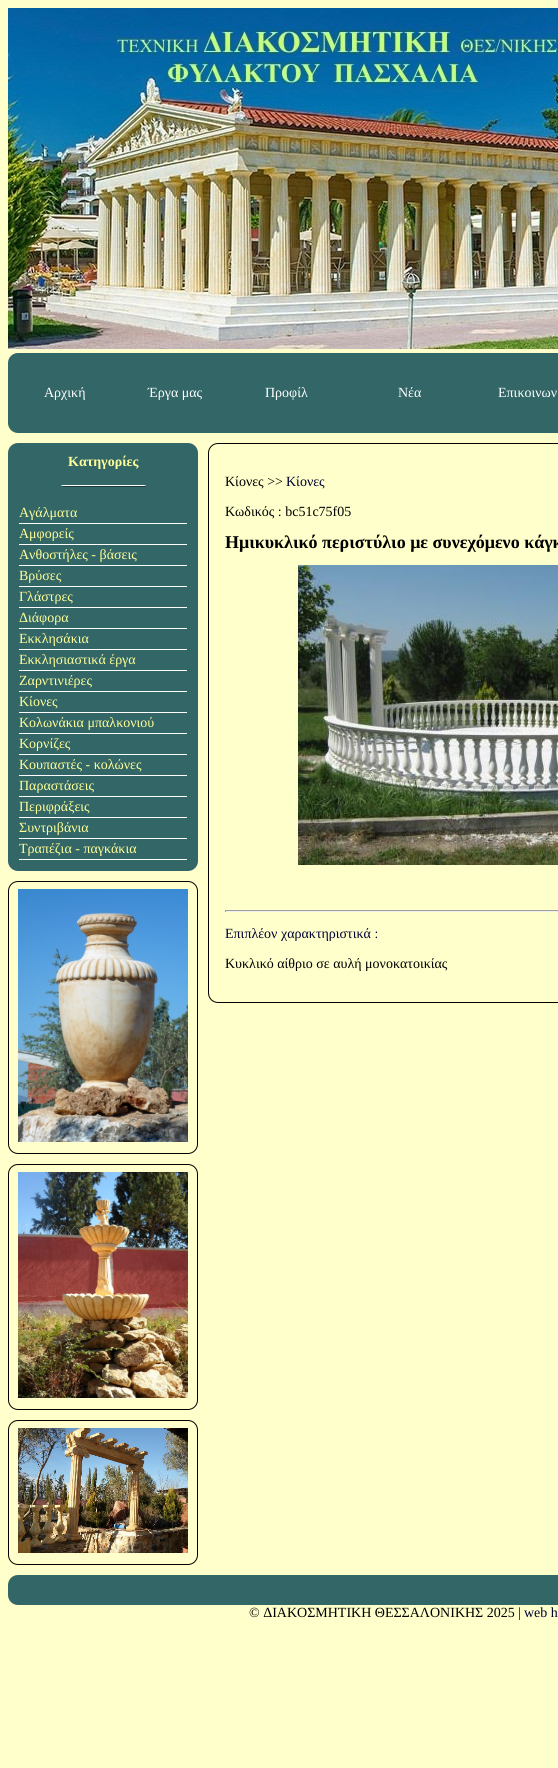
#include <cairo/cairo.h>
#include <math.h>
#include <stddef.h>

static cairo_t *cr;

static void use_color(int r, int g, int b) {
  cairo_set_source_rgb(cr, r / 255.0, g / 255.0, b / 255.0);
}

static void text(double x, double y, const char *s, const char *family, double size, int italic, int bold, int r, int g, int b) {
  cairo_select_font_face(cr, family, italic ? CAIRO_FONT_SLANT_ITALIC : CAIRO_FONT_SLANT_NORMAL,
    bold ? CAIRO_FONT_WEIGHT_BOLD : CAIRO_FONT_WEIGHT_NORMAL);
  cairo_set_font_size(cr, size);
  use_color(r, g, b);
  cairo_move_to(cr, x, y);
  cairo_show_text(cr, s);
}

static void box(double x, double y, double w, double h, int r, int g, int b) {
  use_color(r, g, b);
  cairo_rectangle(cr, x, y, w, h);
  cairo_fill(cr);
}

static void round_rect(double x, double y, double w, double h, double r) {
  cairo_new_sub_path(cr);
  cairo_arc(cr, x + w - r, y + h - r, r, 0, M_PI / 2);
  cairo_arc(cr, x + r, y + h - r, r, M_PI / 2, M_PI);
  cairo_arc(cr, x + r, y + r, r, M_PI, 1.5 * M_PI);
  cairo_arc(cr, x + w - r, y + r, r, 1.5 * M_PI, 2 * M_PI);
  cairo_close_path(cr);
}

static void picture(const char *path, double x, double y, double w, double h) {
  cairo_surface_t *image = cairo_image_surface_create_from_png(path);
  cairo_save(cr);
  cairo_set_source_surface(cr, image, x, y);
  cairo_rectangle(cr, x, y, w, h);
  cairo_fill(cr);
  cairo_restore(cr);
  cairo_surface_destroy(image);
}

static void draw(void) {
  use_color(255, 255, 204);
  cairo_paint(cr);
  picture("img_01.png", 8, 8, 550, 341);
  use_color(51, 102, 102);
  round_rect(8, 353, 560, 80, 10);
  cairo_fill(cr);
  round_rect(8, 443, 190, 428, 10);
  cairo_fill(cr);
  picture("img_02.png", 61, 485, 85, 2);
  box(19, 523, 168, 1, 255, 255, 255);
  box(19, 544, 168, 1, 255, 255, 255);
  box(19, 565, 168, 1, 255, 255, 255);
  box(19, 586, 168, 1, 255, 255, 255);
  box(19, 607, 168, 1, 255, 255, 255);
  box(19, 628, 168, 1, 255, 255, 255);
  box(19, 649, 168, 1, 255, 255, 255);
  box(19, 670, 168, 1, 255, 255, 255);
  box(19, 691, 168, 1, 255, 255, 255);
  box(19, 712, 168, 1, 255, 255, 255);
  box(19, 733, 168, 1, 255, 255, 255);
  box(19, 754, 168, 1, 255, 255, 255);
  box(19, 775, 168, 1, 255, 255, 255);
  box(19, 796, 168, 1, 255, 255, 255);
  box(19, 817, 168, 1, 255, 255, 255);
  box(19, 838, 168, 1, 255, 255, 255);
  box(19, 859, 168, 1, 255, 255, 255);
  round_rect(8.5, 881.5, 189, 272, 9.5);
  use_color(0, 0, 0);
  cairo_set_line_width(cr, 1);
  cairo_stroke(cr);
  picture("img_03.png", 18, 889, 170, 253);
  round_rect(8.5, 1164.5, 189, 245, 9.5);
  cairo_stroke(cr);
  picture("img_04.png", 18, 1172, 170, 226);
  round_rect(8.5, 1420.5, 189, 144, 9.5);
  cairo_stroke(cr);
  picture("img_05.png", 18, 1428, 170, 125);
  round_rect(208.5, 443.5, 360, 559, 9.5);
  cairo_stroke(cr);
  picture("img_06.png", 298, 565, 260, 300);
  box(225, 910, 333, 1, 159, 159, 159);
  box(225, 911, 333, 1, 238, 238, 238);
  box(225, 910, 1, 2, 159, 159, 159);
  use_color(51, 102, 102);
  round_rect(8, 1575, 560, 30, 10);
  cairo_fill(cr);
  text(44, 397, "Αρχική", "Liberation Serif", 14, 0, 0, 255, 255, 255);
  text(148, 397, "Έργα μας", "Liberation Serif", 14, 0, 0, 255, 255, 255);
  text(265, 397, "Προφίλ", "Liberation Serif", 14, 0, 0, 255, 255, 255);
  text(398, 397, "Νέα", "Liberation Serif", 14, 0, 0, 255, 255, 255);
  text(498, 397, "Επικοινων", "Liberation Serif", 14, 0, 0, 255, 255, 255);
  text(68, 466, "Κατηγορίες", "Liberation Serif", 14, 0, 1, 255, 255, 153);
  text(19, 517, "Αγάλματα", "Liberation Serif", 14, 0, 0, 255, 255, 153);
  text(19, 538, "Αμφορείς", "Liberation Serif", 14, 0, 0, 255, 255, 153);
  text(19, 559, "Ανθοστήλες - βάσεις", "Liberation Serif", 14, 0, 0, 255, 255, 153);
  text(19, 580, "Βρύσες", "Liberation Serif", 14, 0, 0, 255, 255, 153);
  text(19, 601, "Γλάστρες", "Liberation Serif", 14, 0, 0, 255, 255, 153);
  text(19, 622, "Διάφορα", "Liberation Serif", 14, 0, 0, 255, 255, 153);
  text(19, 643, "Εκκλησάκια", "Liberation Serif", 14, 0, 0, 255, 255, 153);
  text(19, 664, "Εκκλησιαστικά έργα", "Liberation Serif", 14, 0, 0, 255, 255, 153);
  text(19, 685, "Ζαρντινιέρες", "Liberation Serif", 14, 0, 0, 255, 255, 153);
  text(19, 706, "Κίονες", "Liberation Serif", 14, 0, 0, 255, 255, 153);
  text(19, 727, "Κολωνάκια μπαλκονιού", "Liberation Serif", 14, 0, 0, 255, 255, 153);
  text(19, 748, "Κορνίζες", "Liberation Serif", 14, 0, 0, 255, 255, 153);
  text(19, 769, "Κουπαστές - κολώνες", "Liberation Serif", 14, 0, 0, 255, 255, 153);
  text(19, 790, "Παραστάσεις", "Liberation Serif", 14, 0, 0, 255, 255, 153);
  text(19, 811, "Περιφράξεις", "Liberation Serif", 14, 0, 0, 255, 255, 153);
  text(19, 832, "Συντριβάνια", "Liberation Serif", 14, 0, 0, 255, 255, 153);
  text(19, 853, "Τραπέζια - παγκάκια", "Liberation Serif", 14, 0, 0, 255, 255, 153);
  text(225, 486, "Κίονες >>", "Liberation Serif", 14, 0, 0, 0, 0, 0);
  text(286, 486, "Κίονες", "Liberation Serif", 14, 0, 0, 0, 0, 51);
  text(225, 516, "Κωδικός : bc51c75f05", "Liberation Serif", 14, 0, 0, 0, 0, 0);
  text(225, 548, "Ημικυκλικό περιστύλιο με συνεχόμενο κάγκ", "Liberation Serif", 18, 0, 1, 0, 0, 0);
  text(225, 938, "Επιπλέον χαρακτηριστικά :", "Liberation Serif", 14, 0, 0, 0, 0, 51);
  text(225, 968, "Κυκλικό αίθριο σε αυλή μονοκατοικίας", "Liberation Serif", 14, 0, 0, 0, 0, 0);
  text(249, 1617, "© ΔΙΑΚΟΣΜΗΤΙΚΗ ΘΕΣΣΑΛΟΝΙΚΗΣ 2025 |", "Liberation Serif", 14, 0, 0, 0, 0, 0);
  text(524, 1617, "web h", "Liberation Serif", 14, 0, 0, 0, 0, 51);
}

int main(void) {
  cairo_surface_t *surface = cairo_image_surface_create(CAIRO_FORMAT_RGB24, 558, 1768);
  cr = cairo_create(surface);
  cairo_font_options_t *options = cairo_font_options_create();
  cairo_font_options_set_hint_metrics(options, CAIRO_HINT_METRICS_OFF);
  cairo_font_options_set_hint_style(options, CAIRO_HINT_STYLE_NONE);
  cairo_set_font_options(cr, options);
  cairo_set_miter_limit(cr, 4);
  draw();
  cairo_surface_write_to_png(surface, "out.png");
  cairo_font_options_destroy(options);
  cairo_destroy(cr);
  cairo_surface_destroy(surface);
  return 0;
}
